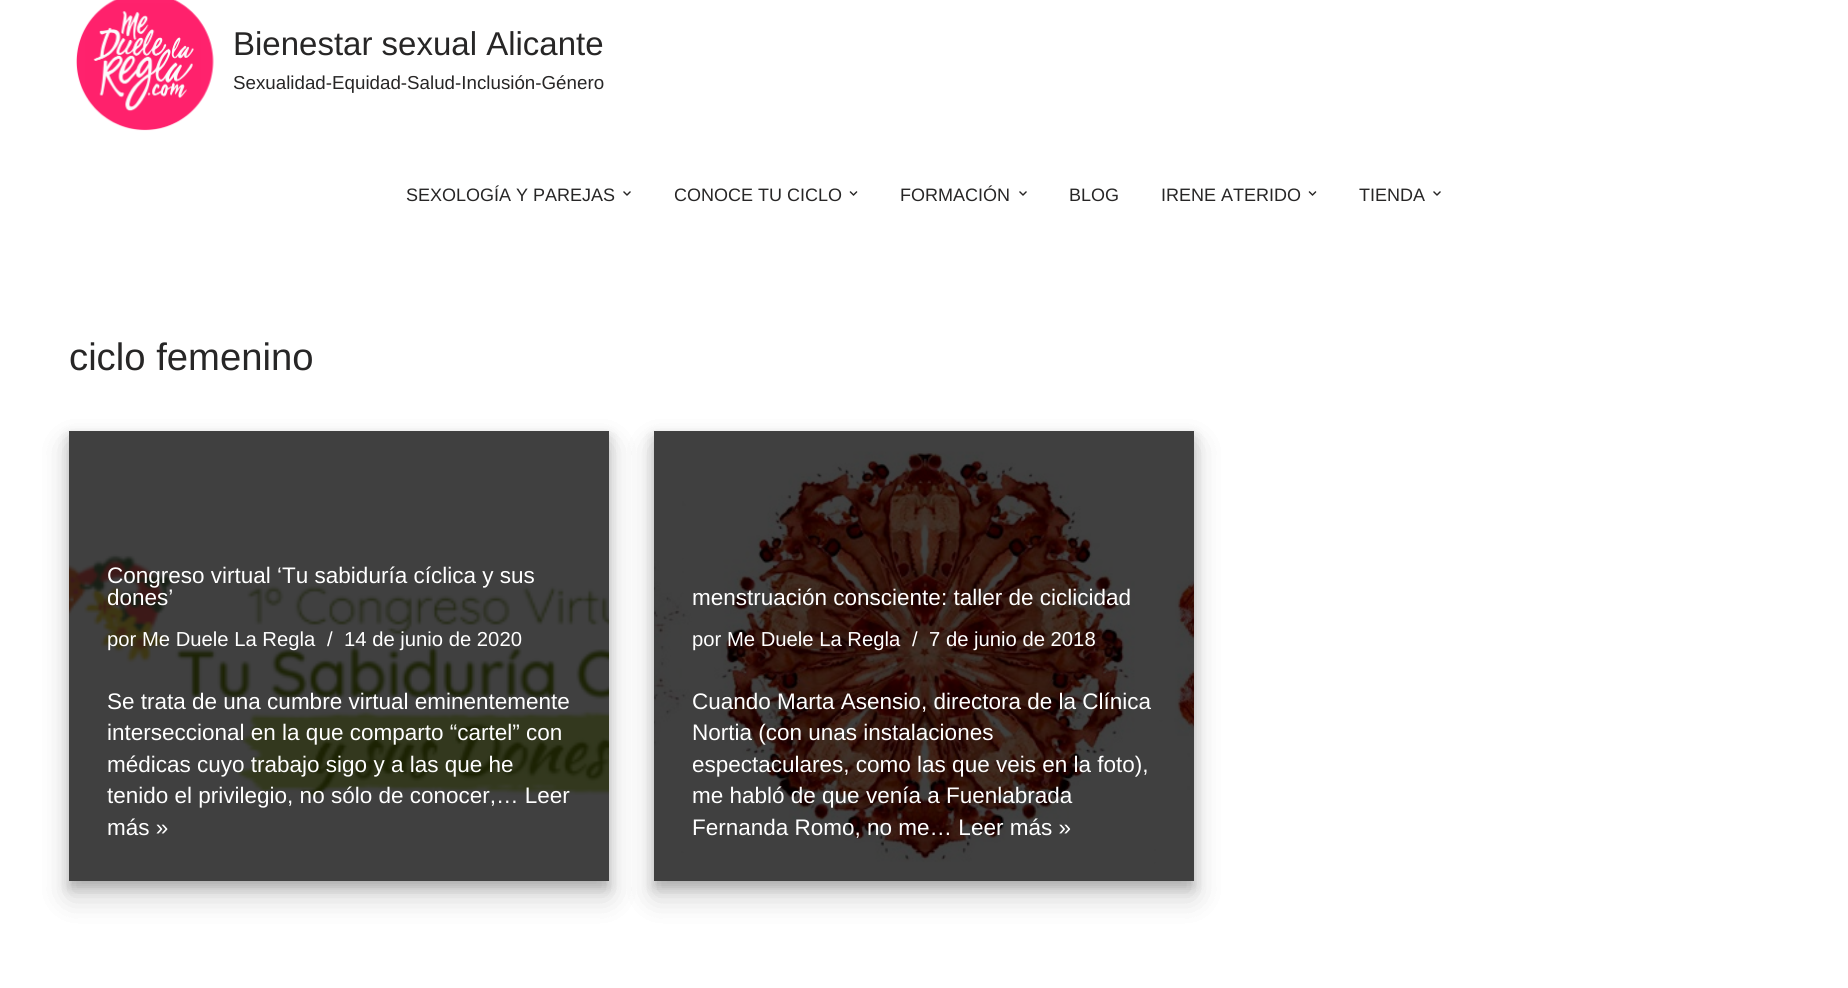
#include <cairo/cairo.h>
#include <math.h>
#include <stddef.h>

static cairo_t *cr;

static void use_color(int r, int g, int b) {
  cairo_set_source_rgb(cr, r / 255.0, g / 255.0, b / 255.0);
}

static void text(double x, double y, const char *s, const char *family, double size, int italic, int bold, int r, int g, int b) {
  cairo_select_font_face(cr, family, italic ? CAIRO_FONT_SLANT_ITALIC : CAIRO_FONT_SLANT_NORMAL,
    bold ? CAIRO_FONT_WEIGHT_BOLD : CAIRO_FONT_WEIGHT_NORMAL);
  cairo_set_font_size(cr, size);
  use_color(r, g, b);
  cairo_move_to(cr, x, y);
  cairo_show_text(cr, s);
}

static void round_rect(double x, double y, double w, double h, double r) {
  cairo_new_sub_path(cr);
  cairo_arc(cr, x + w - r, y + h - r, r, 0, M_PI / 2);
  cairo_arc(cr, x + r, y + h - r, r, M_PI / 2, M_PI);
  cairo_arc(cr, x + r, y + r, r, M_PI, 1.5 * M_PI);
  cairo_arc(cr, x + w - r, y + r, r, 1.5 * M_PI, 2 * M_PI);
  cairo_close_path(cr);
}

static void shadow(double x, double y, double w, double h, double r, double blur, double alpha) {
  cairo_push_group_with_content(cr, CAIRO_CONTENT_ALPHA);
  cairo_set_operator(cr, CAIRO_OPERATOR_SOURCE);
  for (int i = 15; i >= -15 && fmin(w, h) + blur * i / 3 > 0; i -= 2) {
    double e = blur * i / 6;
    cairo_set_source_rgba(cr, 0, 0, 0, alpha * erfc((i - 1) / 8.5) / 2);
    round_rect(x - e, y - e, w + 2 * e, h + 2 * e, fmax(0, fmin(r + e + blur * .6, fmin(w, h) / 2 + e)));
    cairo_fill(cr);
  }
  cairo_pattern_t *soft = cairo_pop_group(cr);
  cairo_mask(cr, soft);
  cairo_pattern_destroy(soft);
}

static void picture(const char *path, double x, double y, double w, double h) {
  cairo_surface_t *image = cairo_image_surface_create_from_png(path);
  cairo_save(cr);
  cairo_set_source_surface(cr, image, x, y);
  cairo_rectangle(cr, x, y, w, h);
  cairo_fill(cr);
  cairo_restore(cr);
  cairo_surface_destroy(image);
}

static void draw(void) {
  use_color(255, 255, 255);
  cairo_paint(cr);
  picture("img_01.png", 76, 0, 138, 131);
  picture("img_02.png", 623, 191, 8, 5);
  picture("img_03.png", 849, 191, 9, 5);
  picture("img_02.png", 1019, 191, 8, 5);
  picture("img_03.png", 1308, 191, 9, 5);
  picture("img_02.png", 1433, 191, 8, 5);
  cairo_save(cr);
  cairo_set_fill_rule(cr, CAIRO_FILL_RULE_EVEN_ODD);
  cairo_new_path(cr);
  cairo_move_to(cr, 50, 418);
  cairo_line_to(cr, 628, 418);
  cairo_line_to(cr, 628, 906);
  cairo_line_to(cr, 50, 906);
  cairo_close_path(cr);
  cairo_move_to(cr, 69, 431);
  cairo_line_to(cr, 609, 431);
  cairo_line_to(cr, 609, 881);
  cairo_line_to(cr, 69, 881);
  cairo_close_path(cr);
  cairo_clip(cr);
  use_color(0, 0, 0);
  shadow(69, 437, 540, 450, 0, 6, 0.1);
  cairo_restore(cr);
  cairo_save(cr);
  cairo_set_fill_rule(cr, CAIRO_FILL_RULE_EVEN_ODD);
  cairo_new_path(cr);
  cairo_move_to(cr, 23, 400);
  cairo_line_to(cr, 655, 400);
  cairo_line_to(cr, 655, 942);
  cairo_line_to(cr, 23, 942);
  cairo_close_path(cr);
  cairo_move_to(cr, 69, 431);
  cairo_line_to(cr, 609, 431);
  cairo_line_to(cr, 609, 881);
  cairo_line_to(cr, 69, 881);
  cairo_close_path(cr);
  cairo_clip(cr);
  use_color(0, 0, 0);
  shadow(69, 446, 540, 450, 0, 15, 0.1);
  cairo_restore(cr);
  cairo_save(cr);
  cairo_set_fill_rule(cr, CAIRO_FILL_RULE_EVEN_ODD);
  cairo_new_path(cr);
  cairo_move_to(cr, 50, 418);
  cairo_line_to(cr, 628, 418);
  cairo_line_to(cr, 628, 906);
  cairo_line_to(cr, 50, 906);
  cairo_close_path(cr);
  cairo_move_to(cr, 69, 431);
  cairo_line_to(cr, 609, 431);
  cairo_line_to(cr, 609, 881);
  cairo_line_to(cr, 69, 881);
  cairo_close_path(cr);
  cairo_clip(cr);
  use_color(0, 0, 0);
  shadow(69, 437, 540, 450, 0, 6, 0.1);
  cairo_restore(cr);
  cairo_save(cr);
  cairo_set_fill_rule(cr, CAIRO_FILL_RULE_EVEN_ODD);
  cairo_new_path(cr);
  cairo_move_to(cr, 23, 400);
  cairo_line_to(cr, 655, 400);
  cairo_line_to(cr, 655, 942);
  cairo_line_to(cr, 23, 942);
  cairo_close_path(cr);
  cairo_move_to(cr, 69, 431);
  cairo_line_to(cr, 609, 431);
  cairo_line_to(cr, 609, 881);
  cairo_line_to(cr, 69, 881);
  cairo_close_path(cr);
  cairo_clip(cr);
  use_color(0, 0, 0);
  shadow(69, 446, 540, 450, 0, 15, 0.1);
  cairo_restore(cr);
  picture("img_04.png", 69, 554, 540, 327);
  cairo_save(cr);
  cairo_set_fill_rule(cr, CAIRO_FILL_RULE_EVEN_ODD);
  cairo_new_path(cr);
  cairo_move_to(cr, 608, 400);
  cairo_line_to(cr, 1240, 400);
  cairo_line_to(cr, 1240, 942);
  cairo_line_to(cr, 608, 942);
  cairo_close_path(cr);
  cairo_move_to(cr, 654, 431);
  cairo_line_to(cr, 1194, 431);
  cairo_line_to(cr, 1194, 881);
  cairo_line_to(cr, 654, 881);
  cairo_close_path(cr);
  cairo_clip(cr);
  use_color(0, 0, 0);
  shadow(654, 446, 540, 450, 0, 15, 0.1);
  shadow(654, 446, 540, 450, 0, 15, 0.1);
  cairo_restore(cr);
  cairo_set_source_rgba(cr, 0, 0, 0, 0.75);
  cairo_rectangle(cr, 69, 431, 540, 450);
  cairo_fill(cr);
  cairo_save(cr);
  cairo_set_fill_rule(cr, CAIRO_FILL_RULE_EVEN_ODD);
  cairo_new_path(cr);
  cairo_move_to(cr, 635, 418);
  cairo_line_to(cr, 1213, 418);
  cairo_line_to(cr, 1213, 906);
  cairo_line_to(cr, 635, 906);
  cairo_close_path(cr);
  cairo_move_to(cr, 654, 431);
  cairo_line_to(cr, 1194, 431);
  cairo_line_to(cr, 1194, 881);
  cairo_line_to(cr, 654, 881);
  cairo_close_path(cr);
  cairo_clip(cr);
  use_color(0, 0, 0);
  shadow(654, 437, 540, 450, 0, 6, 0.1);
  shadow(654, 437, 540, 450, 0, 6, 0.1);
  cairo_restore(cr);
  picture("img_05.png", 654, 451, 540, 430);
  cairo_rectangle(cr, 654, 431, 540, 450);
  cairo_fill(cr);
  text(233, 55, "Bienestar sexual Alicante", "Liberation Sans", 33, 0, 0, 39, 38, 38);
  text(233, 89, "Sexualidad-Equidad-Salud-Inclusión-Género", "Liberation Sans", 18.75, 0, 0, 39, 38, 38);
  text(406, 201, "SEXOLOGÍA Y PAREJAS", "Liberation Sans", 18, 0, 0, 39, 38, 38);
  text(674, 201, "CONOCE TU CICLO", "Liberation Sans", 18, 0, 0, 39, 38, 38);
  text(900, 201, "FORMACIÓN", "Liberation Sans", 18, 0, 0, 39, 38, 38);
  text(1069, 201, "BLOG", "Liberation Sans", 18, 0, 0, 39, 38, 38);
  text(1161, 201, "IRENE ATERIDO", "Liberation Sans", 18, 0, 0, 39, 38, 38);
  text(1359, 201, "TIENDA", "Liberation Sans", 18, 0, 0, 39, 38, 38);
  text(69, 370, "ciclo femenino", "Liberation Sans", 38.25, 0, 0, 39, 38, 38);
  text(107, 583, "Congreso virtual ‘Tu sabiduría cíclica y sus", "Liberation Sans", 22.5, 0, 0, 255, 255, 255);
  text(107, 605, "dones’", "Liberation Sans", 22.5, 0, 0, 255, 255, 255);
  text(107, 646, "por Me Duele La Regla", "Liberation Sans", 20.25, 0, 0, 255, 255, 255);
  text(327, 646, "/", "Liberation Sans", 20.25, 0, 0, 255, 255, 255);
  text(344, 646, "14 de junio de 2020", "Liberation Sans", 20.25, 0, 0, 255, 255, 255);
  text(107, 709, "Se trata de una cumbre virtual eminentemente", "Liberation Sans", 22.5, 0, 0, 255, 255, 255);
  text(107, 740, "interseccional en la que comparto “cartel” con", "Liberation Sans", 22.5, 0, 0, 255, 255, 255);
  text(107, 772, "médicas cuyo trabajo sigo y a las que he", "Liberation Sans", 22.5, 0, 0, 255, 255, 255);
  text(107, 803, "tenido el privilegio, no sólo de conocer,… Leer", "Liberation Sans", 22.5, 0, 0, 255, 255, 255);
  text(107, 835, "más »", "Liberation Sans", 22.5, 0, 0, 255, 255, 255);
  text(692, 605, "menstruación consciente: taller de ciclicidad", "Liberation Sans", 22.5, 0, 0, 255, 255, 255);
  text(692, 646, "por Me Duele La Regla", "Liberation Sans", 20.25, 0, 0, 255, 255, 255);
  text(912, 646, "/", "Liberation Sans", 20.25, 0, 0, 255, 255, 255);
  text(929, 646, "7 de junio de 2018", "Liberation Sans", 20.25, 0, 0, 255, 255, 255);
  text(692, 709, "Cuando Marta Asensio, directora de la Clínica", "Liberation Sans", 22.5, 0, 0, 255, 255, 255);
  text(692, 740, "Nortia (con unas instalaciones", "Liberation Sans", 22.5, 0, 0, 255, 255, 255);
  text(692, 772, "espectaculares, como las que veis en la foto),", "Liberation Sans", 22.5, 0, 0, 255, 255, 255);
  text(692, 803, "me habló de que venía a Fuenlabrada", "Liberation Sans", 22.5, 0, 0, 255, 255, 255);
  text(692, 835, "Fernanda Romo, no me… Leer más »", "Liberation Sans", 22.5, 0, 0, 255, 255, 255);
}

int main(void) {
  cairo_surface_t *surface = cairo_image_surface_create(CAIRO_FORMAT_RGB24, 1848, 988);
  cr = cairo_create(surface);
  cairo_font_options_t *options = cairo_font_options_create();
  cairo_font_options_set_hint_metrics(options, CAIRO_HINT_METRICS_OFF);
  cairo_font_options_set_hint_style(options, CAIRO_HINT_STYLE_NONE);
  cairo_set_font_options(cr, options);
  cairo_set_miter_limit(cr, 4);
  draw();
  cairo_surface_write_to_png(surface, "out.png");
  cairo_font_options_destroy(options);
  cairo_destroy(cr);
  cairo_surface_destroy(surface);
  return 0;
}
